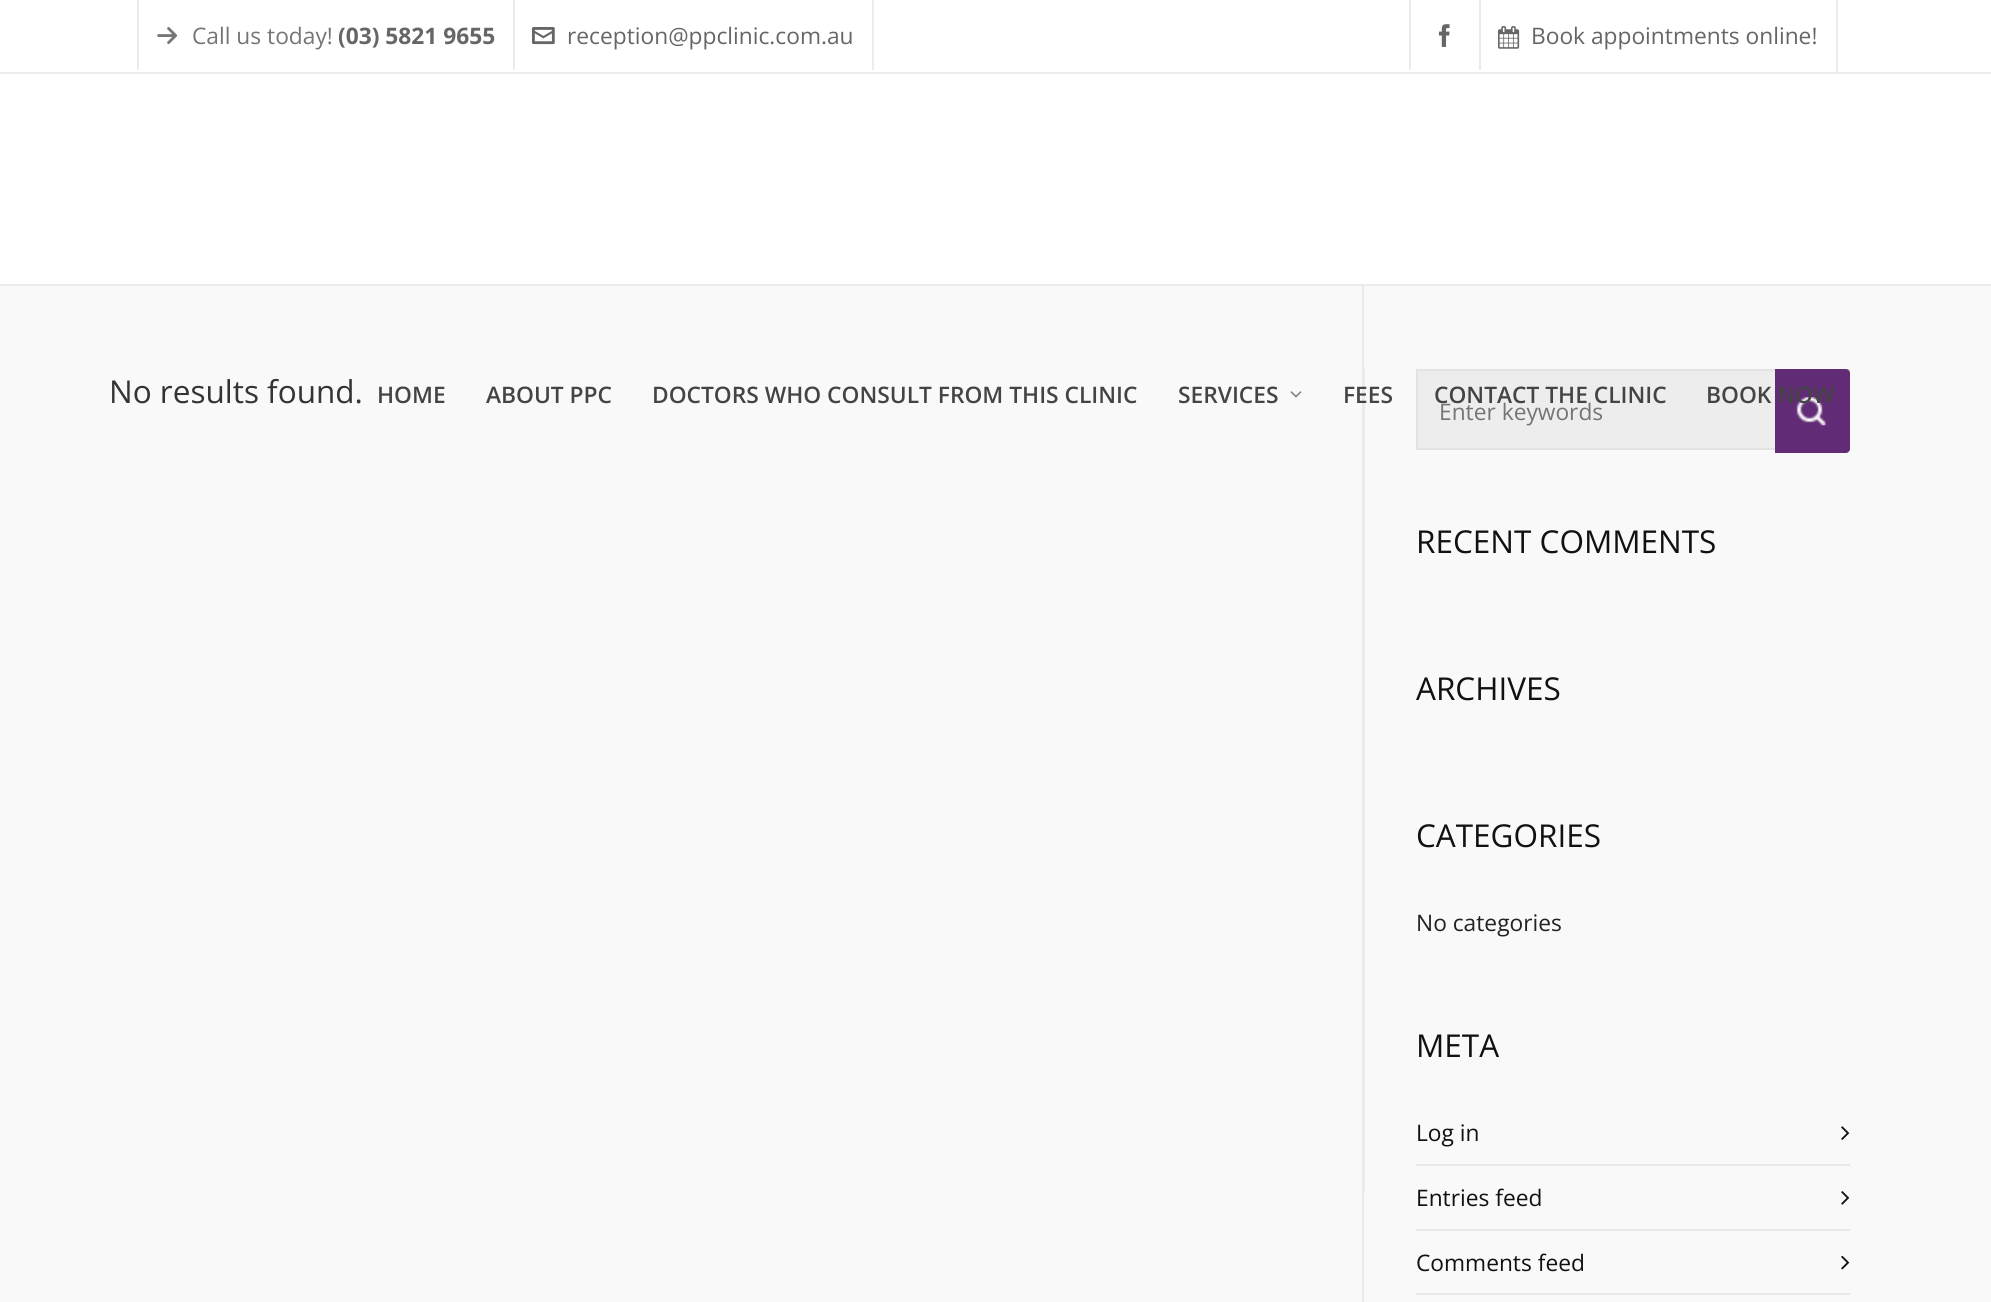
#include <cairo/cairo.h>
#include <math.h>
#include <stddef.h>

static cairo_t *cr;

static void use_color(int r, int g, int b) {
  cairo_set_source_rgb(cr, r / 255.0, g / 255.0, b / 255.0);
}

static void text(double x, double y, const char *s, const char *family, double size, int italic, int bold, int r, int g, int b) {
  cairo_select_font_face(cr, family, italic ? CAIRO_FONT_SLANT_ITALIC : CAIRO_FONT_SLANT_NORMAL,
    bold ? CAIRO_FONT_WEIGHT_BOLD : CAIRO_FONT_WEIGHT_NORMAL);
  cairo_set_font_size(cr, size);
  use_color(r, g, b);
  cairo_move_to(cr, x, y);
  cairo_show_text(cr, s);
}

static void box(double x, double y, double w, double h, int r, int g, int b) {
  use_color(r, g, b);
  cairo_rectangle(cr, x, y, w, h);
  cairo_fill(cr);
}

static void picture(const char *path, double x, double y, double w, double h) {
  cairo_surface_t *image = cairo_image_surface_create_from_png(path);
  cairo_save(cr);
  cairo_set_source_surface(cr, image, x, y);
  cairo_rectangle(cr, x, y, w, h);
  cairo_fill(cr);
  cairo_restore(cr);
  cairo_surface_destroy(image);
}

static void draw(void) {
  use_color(249, 249, 249);
  cairo_paint(cr);
  box(0, 0, 1991, 72, 255, 255, 255);
  box(0, 72, 1991, 2, 235, 235, 235);
  box(513, 0, 2, 70, 235, 235, 235);
  box(137, 0, 2, 70, 235, 235, 235);
  picture("img_01.png", 157, 27, 21, 18);
  box(872, 0, 2, 70, 235, 235, 235);
  picture("img_02.png", 532, 27, 23, 18);
  box(1479, 0, 2, 70, 235, 235, 235);
  box(1409, 0, 2, 70, 235, 235, 235);
  picture("img_03.png", 1438, 24, 12, 23);
  box(1836, 0, 2, 74, 235, 235, 235);
  picture("img_04.png", 1498, 26, 22, 23);
  box(1362, 282, 2, 1020, 235, 235, 235);
  box(0, 74, 1991, 210, 255, 255, 255);
  box(0, 284, 1991, 2, 235, 235, 235);
  picture("img_05.png", 1290, 391, 12, 7);
  box(1364, 369, 1, 823, 235, 235, 235);
  box(1418, 371, 357, 77, 237, 237, 237);
  cairo_rectangle(cr, 1417, 370, 432, 79);
  use_color(227, 227, 227);
  cairo_stroke(cr);
  use_color(97, 43, 117);
  cairo_new_path(cr);
  cairo_move_to(cr, 1775, 369);
  cairo_line_to(cr, 1846, 369);
  cairo_curve_to(cr, 1848, 369, 1850, 371, 1850, 373);
  cairo_line_to(cr, 1850, 449);
  cairo_curve_to(cr, 1850, 451, 1848, 453, 1846, 453);
  cairo_line_to(cr, 1775, 453);
  cairo_close_path(cr);
  cairo_fill(cr);
  picture("img_06.png", 1796, 397, 30, 29);
  picture("img_07.png", 1841, 1126, 9, 14);
  box(1416, 1164, 434, 2, 232, 232, 232);
  picture("img_08.png", 1841, 1191, 9, 14);
  box(1416, 1229, 434, 2, 232, 232, 232);
  picture("img_09.png", 1841, 1255, 9, 15);
  box(1416, 1293, 434, 2, 232, 232, 232);
  text(192, 44, "Call us today!", "Open Sans", 22.75, 0, 0, 117, 117, 117);
  text(338, 44, "(03) 5821 9655", "Open Sans", 22.75, 0, 1, 102, 102, 102);
  text(567, 44, "reception@ppclinic.com.au", "Open Sans", 22.75, 0, 0, 102, 102, 102);
  text(1531, 44, "Book appointments online!", "Open Sans", 22.75, 0, 0, 102, 102, 102);
  text(377, 403, "HOME", "Open Sans SemiBold", 22.75, 0, 0, 68, 68, 68);
  text(486, 403, "ABOUT PPC", "Open Sans SemiBold", 22.75, 0, 0, 68, 68, 68);
  text(652, 403, "DOCTORS WHO CONSULT FROM THIS CLINIC", "Open Sans SemiBold", 22.75, 0, 0, 68, 68, 68);
  text(1178, 403, "SERVICES", "Open Sans SemiBold", 22.75, 0, 0, 68, 68, 68);
  text(1343, 403, "FEES", "Open Sans SemiBold", 22.75, 0, 0, 68, 68, 68);
  text(1434, 403, "CONTACT THE CLINIC", "Open Sans SemiBold", 22.75, 0, 0, 68, 68, 68);
  text(1706, 403, "BOOK NOW", "Open Sans SemiBold", 22.75, 0, 0, 68, 68, 68);
  text(109, 403, "No results found.", "Open Sans", 31.5, 0, 0, 50, 52, 54);
  text(1439, 420, "Enter keywords", "Open Sans", 22.75, 0, 0, 117, 117, 117);
  text(1416, 553, "RECENT COMMENTS", "Open Sans", 31.5, 0, 0, 17, 17, 17);
  text(1416, 700, "ARCHIVES", "Open Sans", 31.5, 0, 0, 17, 17, 17);
  text(1416, 847, "CATEGORIES", "Open Sans", 31.5, 0, 0, 17, 17, 17);
  text(1416, 931, "No categories", "Open Sans", 22.75, 0, 0, 34, 34, 34);
  text(1416, 1057, "META", "Open Sans", 31.5, 0, 0, 17, 17, 17);
  text(1416, 1141, "Log in", "Open Sans", 22.75, 0, 0, 17, 17, 17);
  text(1416, 1206, "Entries feed", "Open Sans", 22.75, 0, 0, 17, 17, 17);
  text(1416, 1271, "Comments feed", "Open Sans", 22.75, 0, 0, 17, 17, 17);
}

int main(void) {
  cairo_surface_t *surface = cairo_image_surface_create(CAIRO_FORMAT_RGB24, 1991, 1302);
  cr = cairo_create(surface);
  cairo_font_options_t *options = cairo_font_options_create();
  cairo_font_options_set_hint_metrics(options, CAIRO_HINT_METRICS_OFF);
  cairo_font_options_set_hint_style(options, CAIRO_HINT_STYLE_NONE);
  cairo_set_font_options(cr, options);
  cairo_set_miter_limit(cr, 4);
  draw();
  cairo_surface_write_to_png(surface, "out.png");
  cairo_font_options_destroy(options);
  cairo_destroy(cr);
  cairo_surface_destroy(surface);
  return 0;
}
